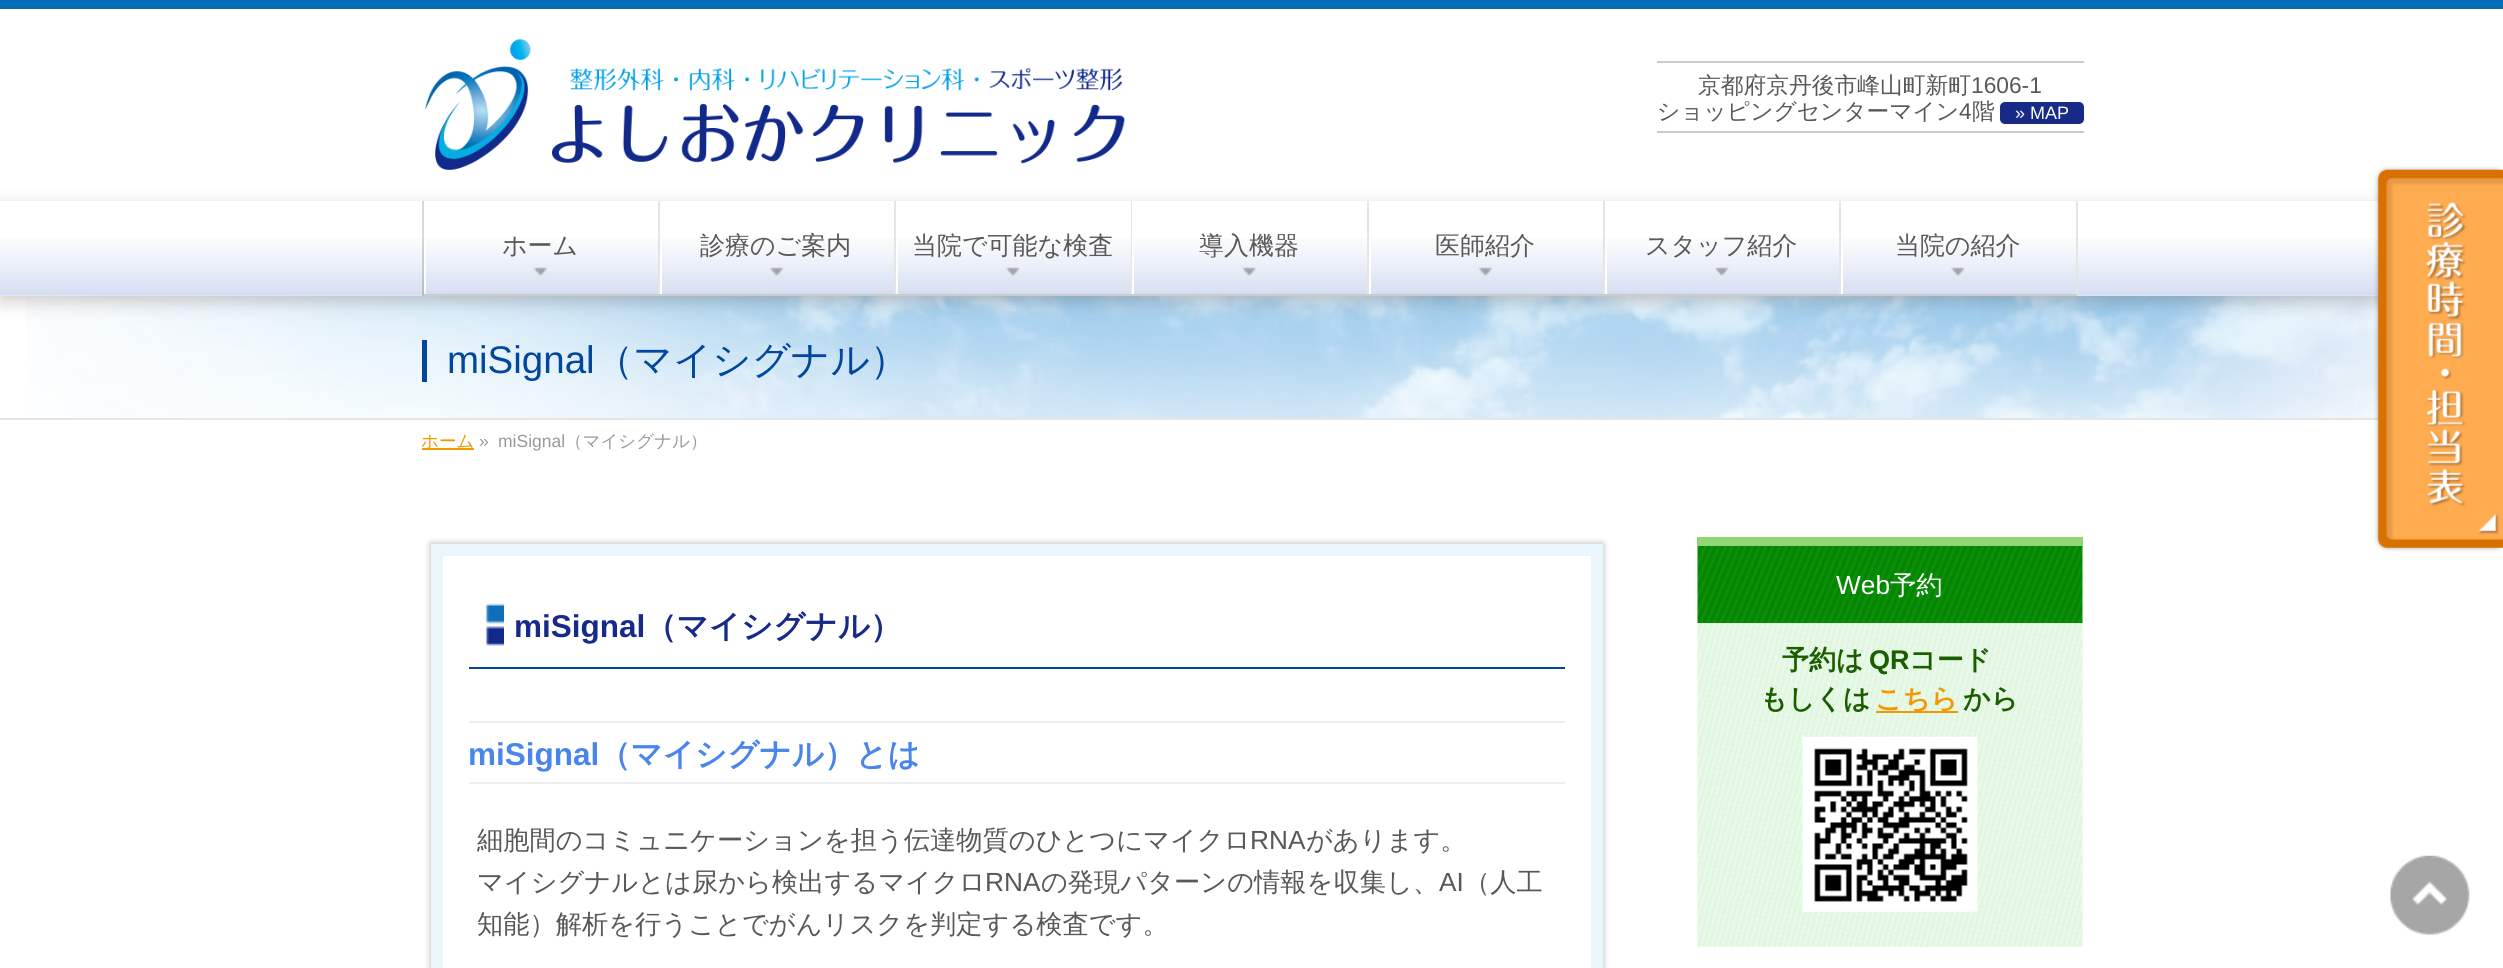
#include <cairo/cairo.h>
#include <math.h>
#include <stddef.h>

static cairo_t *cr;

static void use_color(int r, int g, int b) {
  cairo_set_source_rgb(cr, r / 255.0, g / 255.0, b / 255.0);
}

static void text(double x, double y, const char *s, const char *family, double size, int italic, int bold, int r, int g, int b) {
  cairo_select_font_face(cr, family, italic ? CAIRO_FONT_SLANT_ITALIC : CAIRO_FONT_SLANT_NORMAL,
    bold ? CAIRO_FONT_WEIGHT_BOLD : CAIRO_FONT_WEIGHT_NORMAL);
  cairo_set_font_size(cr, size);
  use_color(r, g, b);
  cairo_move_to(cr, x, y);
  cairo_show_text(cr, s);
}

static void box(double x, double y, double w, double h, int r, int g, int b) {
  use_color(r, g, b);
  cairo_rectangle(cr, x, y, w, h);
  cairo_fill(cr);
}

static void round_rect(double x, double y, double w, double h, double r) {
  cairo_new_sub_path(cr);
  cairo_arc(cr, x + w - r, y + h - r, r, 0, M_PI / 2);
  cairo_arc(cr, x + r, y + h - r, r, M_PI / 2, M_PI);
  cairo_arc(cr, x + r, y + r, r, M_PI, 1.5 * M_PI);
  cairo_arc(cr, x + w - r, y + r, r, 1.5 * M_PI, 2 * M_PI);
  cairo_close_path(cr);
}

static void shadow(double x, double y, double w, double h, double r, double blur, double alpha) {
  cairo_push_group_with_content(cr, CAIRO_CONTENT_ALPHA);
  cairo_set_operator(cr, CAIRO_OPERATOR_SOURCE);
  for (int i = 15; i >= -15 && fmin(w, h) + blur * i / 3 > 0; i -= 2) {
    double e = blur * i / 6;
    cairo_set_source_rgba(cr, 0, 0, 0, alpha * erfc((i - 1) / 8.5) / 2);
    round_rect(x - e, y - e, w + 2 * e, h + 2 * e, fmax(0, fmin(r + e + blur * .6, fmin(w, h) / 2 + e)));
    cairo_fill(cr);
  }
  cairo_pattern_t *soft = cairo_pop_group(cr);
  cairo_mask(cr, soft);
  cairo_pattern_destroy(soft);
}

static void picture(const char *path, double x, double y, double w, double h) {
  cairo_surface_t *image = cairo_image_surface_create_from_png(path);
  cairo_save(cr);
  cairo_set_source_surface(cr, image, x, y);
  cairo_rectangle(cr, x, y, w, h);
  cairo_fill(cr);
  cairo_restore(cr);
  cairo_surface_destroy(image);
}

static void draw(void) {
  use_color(255, 255, 255);
  cairo_paint(cr);
  box(0, 0, 2503, 9, 3, 110, 184);
  picture("img_01.png", 425, 39, 700, 131);
  box(1657, 61, 427, 2, 204, 204, 204);
  box(1657, 131, 427, 2, 204, 204, 204);
  use_color(23, 42, 136);
  round_rect(2000, 102, 84, 22, 5);
  cairo_fill(cr);
  picture("img_10.png", 26, 295, 2353, 123);
  cairo_save(cr);
  cairo_set_fill_rule(cr, CAIRO_FILL_RULE_EVEN_ODD);
  cairo_new_path(cr);
  cairo_move_to(cr, 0, 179);
  cairo_line_to(cr, 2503, 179);
  cairo_line_to(cr, 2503, 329);
  cairo_line_to(cr, 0, 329);
  cairo_close_path(cr);
  cairo_move_to(cr, 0, 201);
  cairo_line_to(cr, 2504, 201);
  cairo_line_to(cr, 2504, 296);
  cairo_line_to(cr, 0, 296);
  cairo_close_path(cr);
  cairo_clip(cr);
  use_color(96, 76, 63);
  shadow(0, 207, 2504, 94, 0, 9, 0.3);
  cairo_restore(cr);
  picture("img_02.png", 0, 238, 2379, 58);
  cairo_set_source_rgba(cr, 0, 0, 0, 0.15);
  cairo_rectangle(cr, 422, 201, 2, 95);
  cairo_fill(cr);
  box(424, 201, 2, 93, 255, 255, 255);
  box(658, 201, 2, 95, 229, 229, 229);
  box(424, 294, 236, 2, 204, 204, 204);
  picture("img_03.png", 533, 267, 15, 9);
  box(660, 201, 2, 93, 255, 255, 255);
  box(894, 201, 2, 95, 229, 229, 229);
  box(660, 294, 236, 2, 204, 204, 204);
  picture("img_04.png", 770, 267, 14, 10);
  box(896, 201, 2, 93, 255, 255, 255);
  box(1131, 201, 1, 95, 229, 229, 229);
  box(896, 294, 236, 2, 204, 204, 204);
  picture("img_05.png", 1006, 267, 14, 10);
  box(1132, 201, 2, 93, 255, 255, 255);
  box(1367, 201, 2, 95, 229, 229, 229);
  box(1132, 294, 237, 2, 204, 204, 204);
  picture("img_06.png", 1242, 267, 15, 10);
  box(1369, 201, 2, 93, 255, 255, 255);
  box(1603, 201, 2, 95, 229, 229, 229);
  box(1369, 294, 236, 2, 204, 204, 204);
  picture("img_07.png", 1478, 267, 15, 9);
  box(1605, 201, 2, 93, 255, 255, 255);
  box(1839, 201, 2, 95, 229, 229, 229);
  box(1605, 294, 236, 2, 204, 204, 204);
  picture("img_08.png", 1715, 267, 14, 10);
  box(1841, 201, 2, 93, 255, 255, 255);
  box(2076, 201, 2, 95, 229, 229, 229);
  box(1841, 294, 236, 2, 204, 204, 204);
  picture("img_09.png", 1951, 267, 14, 10);
  box(0, 418, 2379, 2, 229, 229, 229);
  box(422, 340, 5, 42, 0, 71, 157);
  box(422, 448, 52, 2, 243, 152, 0);
  cairo_save(cr);
  cairo_set_fill_rule(cr, CAIRO_FILL_RULE_EVEN_ODD);
  cairo_new_path(cr);
  cairo_move_to(cr, 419, 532);
  cairo_line_to(cr, 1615, 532);
  cairo_line_to(cr, 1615, 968);
  cairo_line_to(cr, 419, 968);
  cairo_close_path(cr);
  cairo_move_to(cr, 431, 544);
  cairo_line_to(cr, 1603, 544);
  cairo_line_to(cr, 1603, 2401);
  cairo_line_to(cr, 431, 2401);
  cairo_close_path(cr);
  cairo_clip(cr);
  use_color(0, 0, 0);
  shadow(431, 544, 1172, 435, 0, 3.5, 0.3);
  cairo_restore(cr);
  cairo_rectangle(cr, 437, 550, 1160, 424);
  cairo_set_source_rgba(cr, 0.18, 0.655, 0.878, 0.1);
  cairo_set_line_width(cr, 12);
  cairo_stroke(cr);
  box(469, 667, 1096, 2, 0, 71, 157);
  picture("img_11.png", 486, 603, 18, 43);
  box(469, 721, 1096, 2, 238, 238, 238);
  box(469, 782, 1096, 2, 238, 238, 238);
  picture("img_12.png", 1697, 537, 386, 86);
  box(1698, 537, 385, 9, 144, 214, 115);
  picture("img_13.png", 1697, 623, 386, 324);
  box(1876, 711, 82, 2, 243, 152, 0);
  picture("img_14.png", 1802, 736, 176, 176);
  picture("img_15.png", 2390, 855, 80, 80);
  use_color(0, 0, 0);
  shadow(2378, 170, 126, 378, 9, 2.5, 0.33);
  picture("img_16.png", 2378, 169, 125, 379);
  text(1698, 93, "京都府京丹後市峰山町新町", "WenQuanYi Zen Hei Medium", 22.75, 0, 0, 89, 87, 87);
  text(1971, 93, "1606-1", "Liberation Sans", 22.75, 0, 0, 89, 87, 87);
  text(1657, 119, "ショッピングセンターマイン", "WenQuanYi Zen Hei Medium", 22.75, 0, 0, 89, 87, 87);
  text(1959, 119, "4", "Liberation Sans", 22.75, 0, 0, 89, 87, 87);
  text(1972, 119, "階", "WenQuanYi Zen Hei Medium", 22.75, 0, 0, 89, 87, 87);
  text(2015, 119, "» MAP", "Liberation Sans", 18, 0, 0, 255, 255, 255);
  text(502, 254, "ホーム", "WenQuanYi Zen Hei Medium", 25, 0, 0, 89, 87, 87);
  text(700, 254, "診療のご案内", "WenQuanYi Zen Hei Medium", 25, 0, 0, 89, 87, 87);
  text(912, 254, "当院で可能な検査", "WenQuanYi Zen Hei Medium", 25, 0, 0, 89, 87, 87);
  text(1199, 254, "導入機器", "WenQuanYi Zen Hei Medium", 25, 0, 0, 89, 87, 87);
  text(1435, 254, "医師紹介", "WenQuanYi Zen Hei Medium", 25, 0, 0, 89, 87, 87);
  text(1645, 254, "スタッフ紹介", "WenQuanYi Zen Hei Medium", 25, 0, 0, 89, 87, 87);
  text(1895, 254, "当院の紹介", "WenQuanYi Zen Hei Medium", 25, 0, 0, 89, 87, 87);
  text(447, 373, "miSignal", "Liberation Sans", 38.5, 0, 0, 0, 71, 157);
  text(595, 373, "（マイシグナル）", "WenQuanYi Zen Hei Medium", 38.5, 0, 0, 0, 71, 157);
  text(421, 447, "ホーム", "WenQuanYi Zen Hei Medium", 17.5, 0, 0, 243, 152, 0);
  text(479, 447, "»", "Liberation Sans", 17.5, 0, 0, 153, 153, 153);
  text(498, 447, "miSignal", "Liberation Sans", 17.5, 0, 0, 153, 153, 153);
  text(565, 447, "（マイシグナル）", "WenQuanYi Zen Hei Medium", 17.5, 0, 0, 153, 153, 153);
  text(514, 637, "miSignal", "Liberation Sans", 31.5, 0, 1, 23, 42, 136);
  text(645, 637, "（マイシグナル）", "WenQuanYi Zen Hei", 31.5, 0, 1, 23, 42, 136);
  text(468, 765, "miSignal", "Liberation Sans", 31.5, 0, 1, 73, 133, 235);
  text(599, 765, "（マイシグナル）とは", "WenQuanYi Zen Hei", 31.5, 0, 1, 73, 133, 235);
  text(477, 849, "細胞間のコミュニケーションを担う伝達物質のひとつにマイクロ", "WenQuanYi Zen Hei Medium", 26.25, 0, 0, 89, 87, 87);
  text(1250, 849, "RNA", "Liberation Sans", 26.25, 0, 0, 89, 87, 87);
  text(1306, 849, "があります。", "WenQuanYi Zen Hei Medium", 26.25, 0, 0, 89, 87, 87);
  text(477, 891, "マイシグナルとは尿から検出するマイクロ", "WenQuanYi Zen Hei Medium", 26.25, 0, 0, 89, 87, 87);
  text(985, 891, "RNA", "Liberation Sans", 26.25, 0, 0, 89, 87, 87);
  text(1041, 891, "の発現パターンの情報を収集し、", "WenQuanYi Zen Hei Medium", 26.25, 0, 0, 89, 87, 87);
  text(1439, 891, "AI", "Liberation Sans", 26.25, 0, 0, 89, 87, 87);
  text(1464, 891, "（人工", "WenQuanYi Zen Hei Medium", 26.25, 0, 0, 89, 87, 87);
  text(477, 933, "知能）解析を行うことでがんリスクを判定する検査です。", "WenQuanYi Zen Hei Medium", 26.25, 0, 0, 89, 87, 87);
  text(1836, 594, "Web", "Liberation Sans", 26.25, 0, 0, 255, 255, 255);
  text(1890, 594, "予約", "WenQuanYi Zen Hei Medium", 26.25, 0, 0, 255, 255, 255);
  text(1782, 669, "予約は", "WenQuanYi Zen Hei", 27, 0, 1, 27, 94, 0);
  text(1869, 669, "QR", "Liberation Sans", 27, 0, 1, 27, 94, 0);
  text(1909, 669, "コード", "WenQuanYi Zen Hei", 27, 0, 1, 27, 94, 0);
  text(1760, 708, "もしくは", "WenQuanYi Zen Hei", 27, 0, 1, 27, 94, 0);
  text(1875, 708, "こちら", "WenQuanYi Zen Hei", 27, 0, 1, 243, 152, 0);
  text(1963, 708, "から", "WenQuanYi Zen Hei", 27, 0, 1, 27, 94, 0);
}

int main(void) {
  cairo_surface_t *surface = cairo_image_surface_create(CAIRO_FORMAT_RGB24, 2503, 968);
  cr = cairo_create(surface);
  cairo_font_options_t *options = cairo_font_options_create();
  cairo_font_options_set_hint_metrics(options, CAIRO_HINT_METRICS_OFF);
  cairo_font_options_set_hint_style(options, CAIRO_HINT_STYLE_NONE);
  cairo_set_font_options(cr, options);
  cairo_set_miter_limit(cr, 4);
  draw();
  cairo_surface_write_to_png(surface, "out.png");
  cairo_font_options_destroy(options);
  cairo_destroy(cr);
  cairo_surface_destroy(surface);
  return 0;
}
